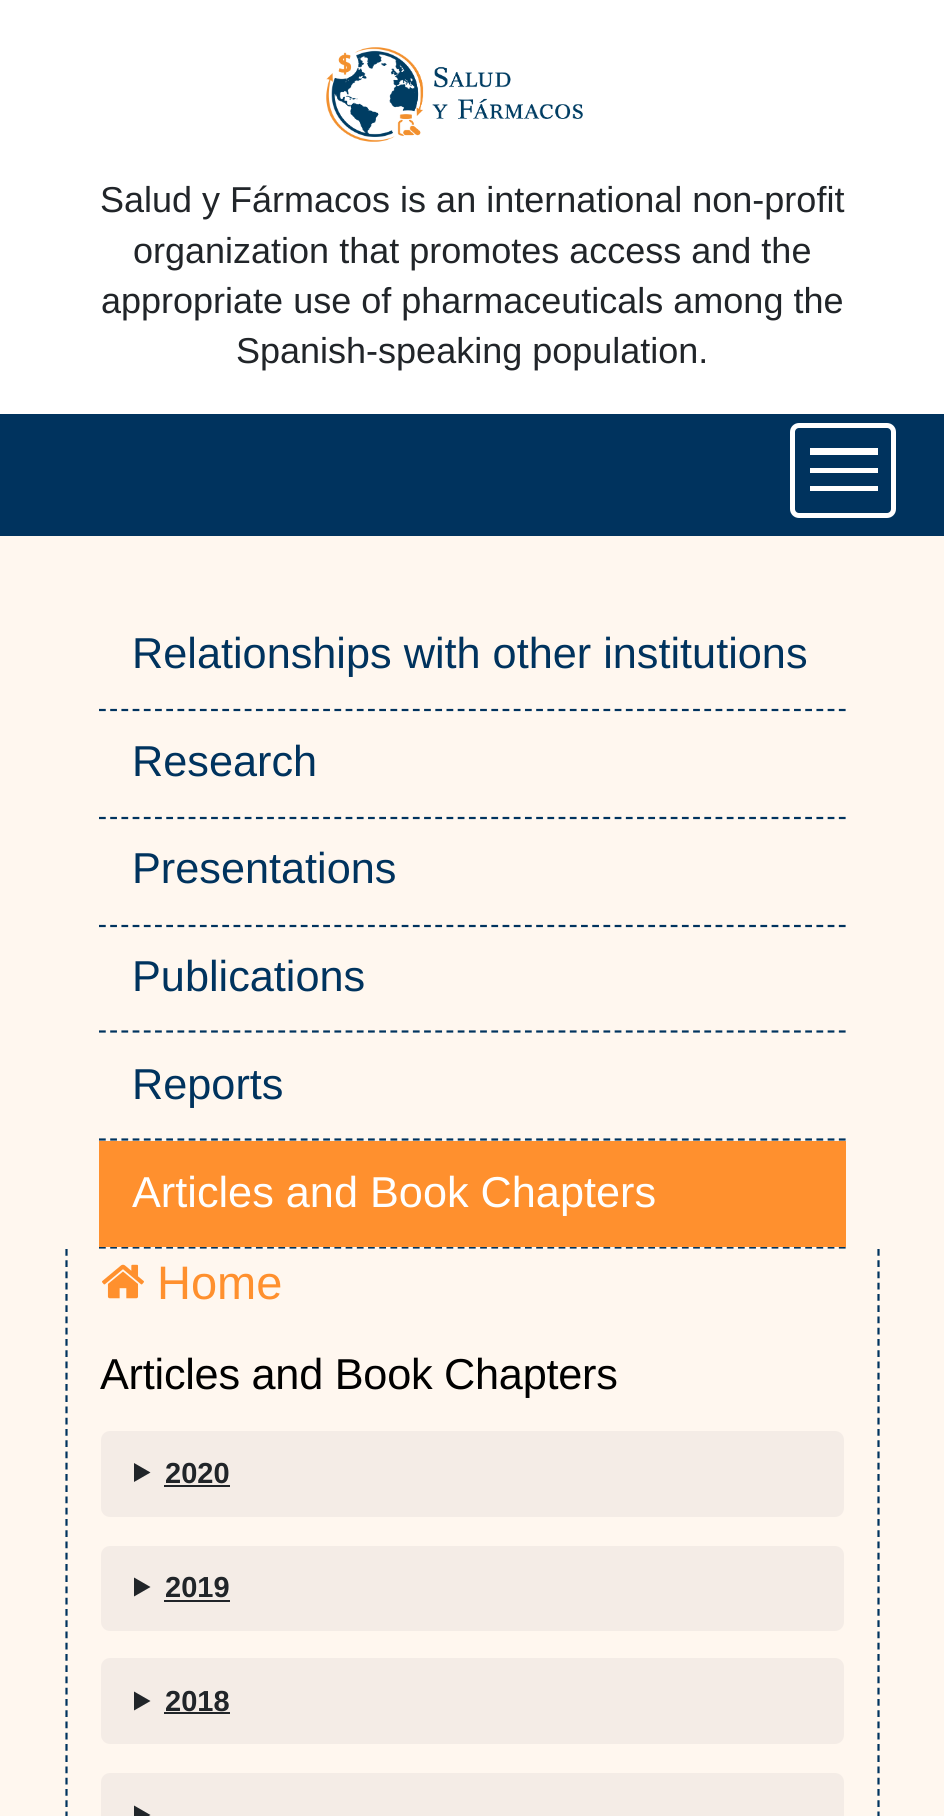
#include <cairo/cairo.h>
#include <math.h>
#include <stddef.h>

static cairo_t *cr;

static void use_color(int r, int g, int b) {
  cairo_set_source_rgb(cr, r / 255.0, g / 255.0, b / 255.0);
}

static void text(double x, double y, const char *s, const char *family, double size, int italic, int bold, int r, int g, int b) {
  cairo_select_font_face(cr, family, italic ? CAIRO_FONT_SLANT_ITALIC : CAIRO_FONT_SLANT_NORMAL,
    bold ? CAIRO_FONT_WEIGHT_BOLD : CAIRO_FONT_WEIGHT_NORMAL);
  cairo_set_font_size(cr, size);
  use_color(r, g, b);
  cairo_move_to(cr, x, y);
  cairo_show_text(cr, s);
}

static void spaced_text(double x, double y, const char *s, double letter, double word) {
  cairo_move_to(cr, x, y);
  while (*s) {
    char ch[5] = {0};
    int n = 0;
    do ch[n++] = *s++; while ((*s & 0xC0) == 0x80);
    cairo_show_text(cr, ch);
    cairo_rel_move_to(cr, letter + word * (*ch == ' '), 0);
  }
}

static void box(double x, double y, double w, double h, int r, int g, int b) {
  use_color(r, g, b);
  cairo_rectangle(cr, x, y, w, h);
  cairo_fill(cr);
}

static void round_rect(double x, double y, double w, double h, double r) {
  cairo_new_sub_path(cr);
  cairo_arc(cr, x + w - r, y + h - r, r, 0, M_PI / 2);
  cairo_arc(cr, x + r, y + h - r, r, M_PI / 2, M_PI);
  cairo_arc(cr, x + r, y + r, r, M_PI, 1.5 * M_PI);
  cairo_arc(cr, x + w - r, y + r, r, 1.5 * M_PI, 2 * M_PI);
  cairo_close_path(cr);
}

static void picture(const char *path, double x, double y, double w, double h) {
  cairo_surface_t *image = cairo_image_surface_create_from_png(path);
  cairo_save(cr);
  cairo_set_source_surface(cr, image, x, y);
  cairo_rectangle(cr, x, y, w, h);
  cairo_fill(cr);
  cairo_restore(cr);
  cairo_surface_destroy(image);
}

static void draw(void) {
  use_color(255, 255, 255);
  cairo_paint(cr);
  picture("img_01.png", 326, 47, 257, 95);
  box(0, 414, 944, 122, 0, 51, 94);
  round_rect(792.5, 425.5, 101, 90, 6.5);
  use_color(255, 255, 255);
  cairo_set_line_width(cr, 5);
  cairo_stroke(cr);
  box(810, 448, 68, 7, 255, 255, 255);
  box(810, 468, 68, 5, 255, 255, 255);
  box(810, 486, 68, 5, 255, 255, 255);
  box(0, 536, 944, 1280, 255, 247, 239);
  cairo_new_path(cr);
  cairo_move_to(cr, 99, 710);
  cairo_line_to(cr, 846, 710);
  use_color(0, 51, 94);
  cairo_set_line_width(cr, 2.2);
  cairo_set_dash(cr, (double[]){6.75, 4.46}, 2, 0);
  cairo_stroke(cr);
  cairo_new_path(cr);
  cairo_move_to(cr, 99, 818);
  cairo_line_to(cr, 846, 818);
  cairo_stroke(cr);
  cairo_new_path(cr);
  cairo_move_to(cr, 99, 926);
  cairo_line_to(cr, 846, 926);
  cairo_stroke(cr);
  cairo_new_path(cr);
  cairo_move_to(cr, 99, 1031.5);
  cairo_line_to(cr, 846, 1031.5);
  cairo_stroke(cr);
  cairo_new_path(cr);
  cairo_move_to(cr, 99, 1139.5);
  cairo_line_to(cr, 846, 1139.5);
  cairo_stroke(cr);
  cairo_new_path(cr);
  cairo_move_to(cr, 99, 1247.5);
  cairo_line_to(cr, 846, 1247.5);
  cairo_stroke(cr);
  box(99, 1141, 747, 106, 255, 144, 46);
  cairo_new_path(cr);
  cairo_move_to(cr, 878.5, 1249);
  cairo_line_to(cr, 878.5, 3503);
  use_color(0, 51, 94);
  cairo_set_dash(cr, (double[]){6.75, 4.5}, 2, 0);
  cairo_stroke(cr);
  cairo_new_path(cr);
  cairo_move_to(cr, 66.5, 1249);
  cairo_line_to(cr, 66.5, 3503);
  cairo_stroke(cr);
  picture("img_02.png", 102, 1264, 42, 35);
  use_color(244, 236, 230);
  round_rect(101, 1431, 743, 86, 9);
  cairo_fill(cr);
  use_color(33, 37, 41);
  cairo_new_path(cr);
  cairo_move_to(cr, 134, 1463);
  cairo_line_to(cr, 150.5, 1472.5);
  cairo_line_to(cr, 134, 1482);
  cairo_close_path(cr);
  cairo_fill(cr);
  box(164, 1485, 66, 2, 33, 37, 41);
  use_color(244, 236, 230);
  round_rect(101, 1546, 743, 85, 9);
  cairo_fill(cr);
  use_color(33, 37, 41);
  cairo_new_path(cr);
  cairo_move_to(cr, 134, 1577.5);
  cairo_line_to(cr, 150.5, 1587);
  cairo_line_to(cr, 134, 1596.5);
  cairo_close_path(cr);
  cairo_fill(cr);
  box(164, 1600, 66, 2, 33, 37, 41);
  use_color(244, 236, 230);
  round_rect(101, 1658, 743, 86, 9);
  cairo_fill(cr);
  use_color(33, 37, 41);
  cairo_new_path(cr);
  cairo_move_to(cr, 134, 1691.5);
  cairo_line_to(cr, 150.5, 1701);
  cairo_line_to(cr, 134, 1710.5);
  cairo_close_path(cr);
  cairo_fill(cr);
  box(164, 1712, 66, 2, 33, 37, 41);
  use_color(244, 236, 230);
  round_rect(101, 1773, 743, 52, 9);
  cairo_fill(cr);
  use_color(33, 37, 41);
  cairo_new_path(cr);
  cairo_move_to(cr, 134, 1805.5);
  cairo_line_to(cr, 150.5, 1815);
  cairo_line_to(cr, 134, 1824.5);
  cairo_close_path(cr);
  cairo_fill(cr);
  text(100, 212, "Salud y Fármacos is an international non-profit", "Liberation Sans", 36, 0, 0, 33, 37, 41);
  text(133, 263, "organization that promotes access and the", "Liberation Sans", 36, 0, 0, 33, 37, 41);
  text(101, 313, "appropriate use of pharmaceuticals among the", "Liberation Sans", 36, 0, 0, 33, 37, 41);
  text(236, 363, "Spanish-speaking population.", "Liberation Sans", 36, 0, 0, 33, 37, 41);
  text(132, 668, "Relationships with other institutions", "Liberation Sans", 43.25, 0, 0, 0, 51, 94);
  text(132, 776, "Research", "Liberation Sans", 43.25, 0, 0, 0, 51, 94);
  text(132, 883, "Presentations", "Liberation Sans", 43.25, 0, 0, 0, 51, 94);
  text(132, 991, "Publications", "Liberation Sans", 43.25, 0, 0, 0, 51, 94);
  text(132, 1099, "Reports", "Liberation Sans", 43.25, 0, 0, 0, 51, 94);
  text(132, 1207, "Articles and Book Chapters", "Liberation Sans", 43.25, 0, 0, 255, 255, 255);
  text(157, 1299, "Home", "Liberation Sans", 47, 0, 0, 255, 144, 46);
  cairo_set_font_size(cr, 43.25);
  use_color(0, 0, 0);
  spaced_text(100, 1389, "Articles and Book Chapters", -0.25, 0);
  text(165, 1483, "2020", "Liberation Sans", 29, 0, 1, 33, 37, 41);
  text(165, 1597, "2019", "Liberation Sans", 29, 0, 1, 33, 37, 41);
  text(165, 1711, "2018", "Liberation Sans", 29, 0, 1, 33, 37, 41);
}

int main(void) {
  cairo_surface_t *surface = cairo_image_surface_create(CAIRO_FORMAT_RGB24, 944, 1816);
  cr = cairo_create(surface);
  cairo_font_options_t *options = cairo_font_options_create();
  cairo_font_options_set_hint_metrics(options, CAIRO_HINT_METRICS_OFF);
  cairo_font_options_set_hint_style(options, CAIRO_HINT_STYLE_NONE);
  cairo_set_font_options(cr, options);
  cairo_set_miter_limit(cr, 4);
  draw();
  cairo_surface_write_to_png(surface, "out.png");
  cairo_font_options_destroy(options);
  cairo_destroy(cr);
  cairo_surface_destroy(surface);
  return 0;
}
